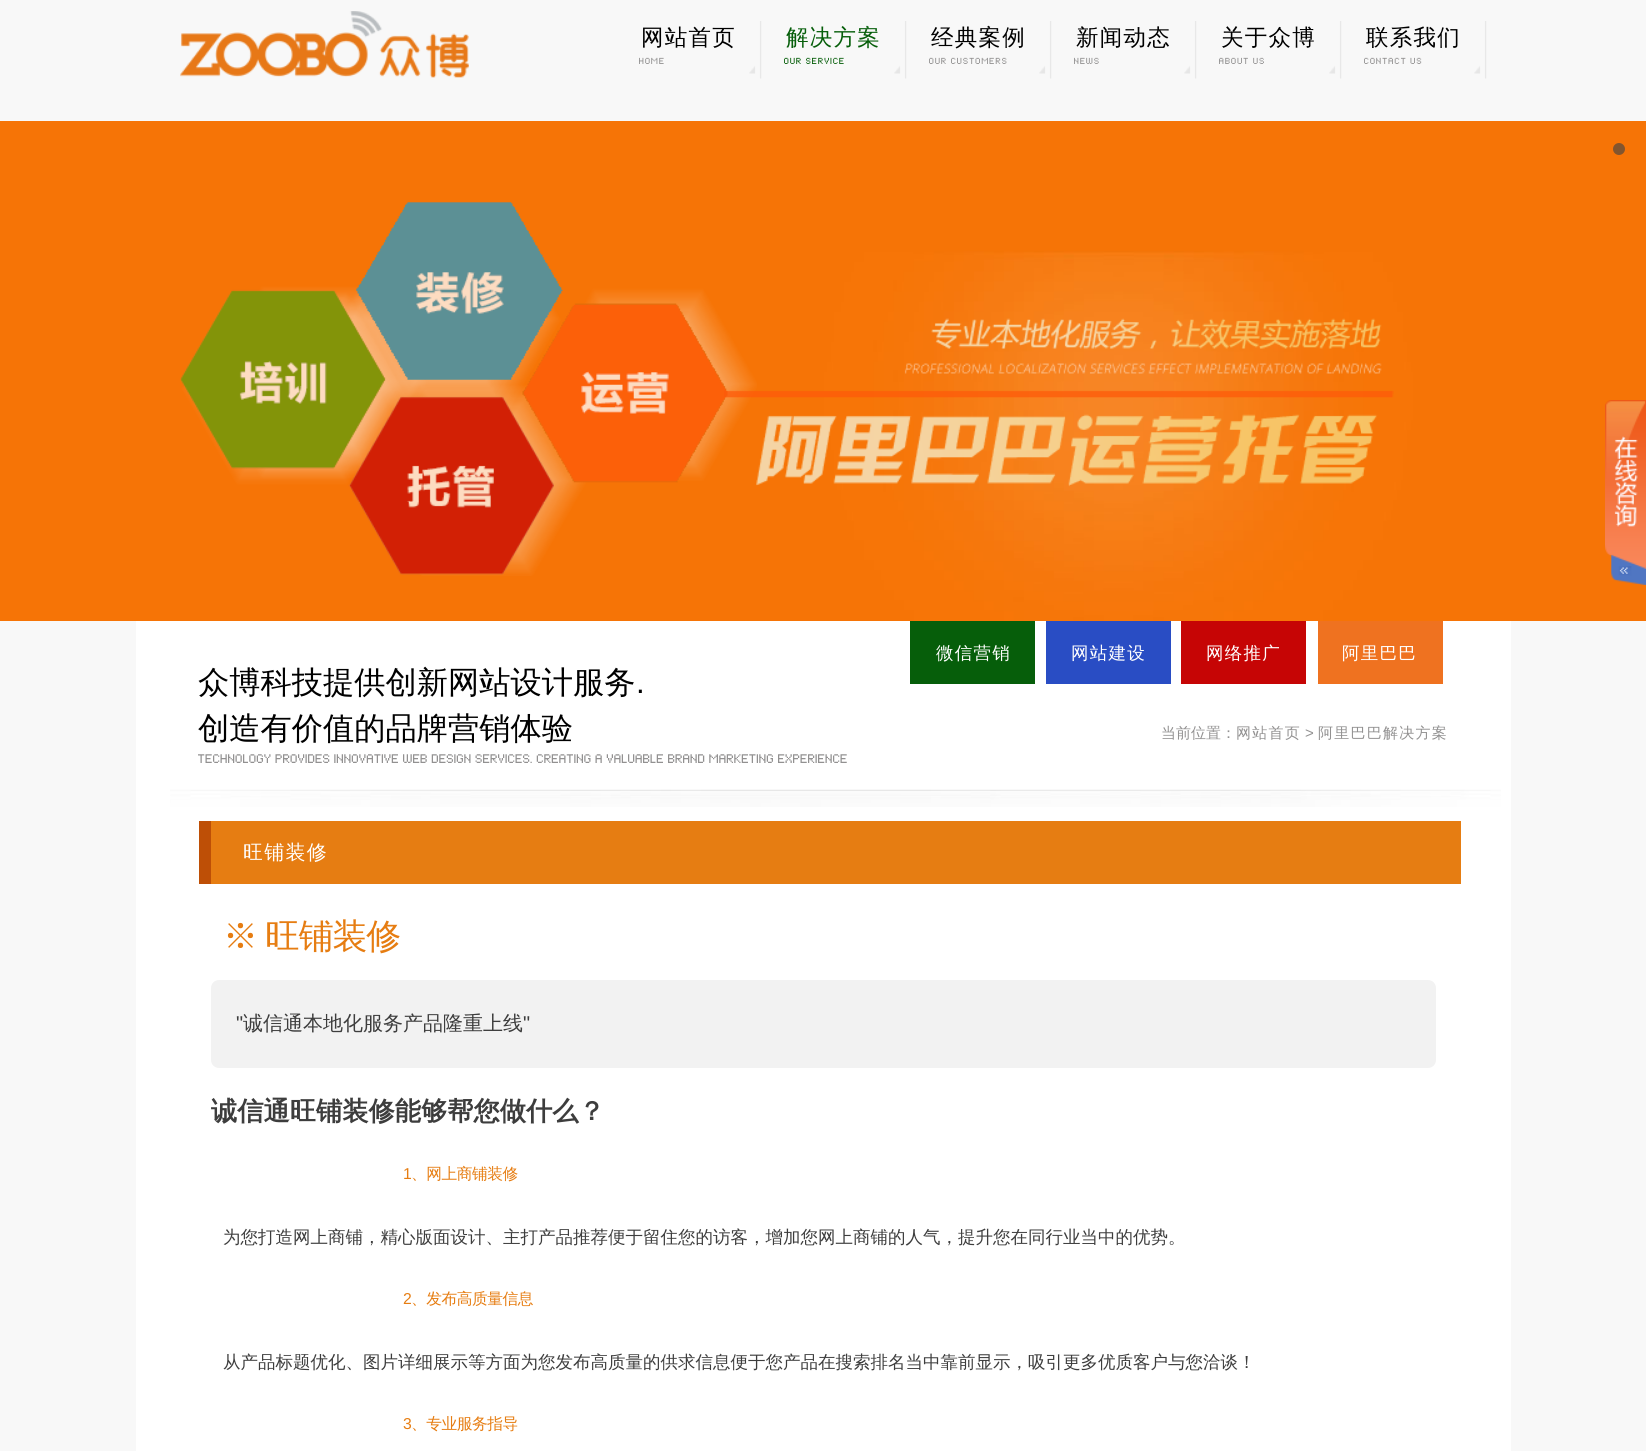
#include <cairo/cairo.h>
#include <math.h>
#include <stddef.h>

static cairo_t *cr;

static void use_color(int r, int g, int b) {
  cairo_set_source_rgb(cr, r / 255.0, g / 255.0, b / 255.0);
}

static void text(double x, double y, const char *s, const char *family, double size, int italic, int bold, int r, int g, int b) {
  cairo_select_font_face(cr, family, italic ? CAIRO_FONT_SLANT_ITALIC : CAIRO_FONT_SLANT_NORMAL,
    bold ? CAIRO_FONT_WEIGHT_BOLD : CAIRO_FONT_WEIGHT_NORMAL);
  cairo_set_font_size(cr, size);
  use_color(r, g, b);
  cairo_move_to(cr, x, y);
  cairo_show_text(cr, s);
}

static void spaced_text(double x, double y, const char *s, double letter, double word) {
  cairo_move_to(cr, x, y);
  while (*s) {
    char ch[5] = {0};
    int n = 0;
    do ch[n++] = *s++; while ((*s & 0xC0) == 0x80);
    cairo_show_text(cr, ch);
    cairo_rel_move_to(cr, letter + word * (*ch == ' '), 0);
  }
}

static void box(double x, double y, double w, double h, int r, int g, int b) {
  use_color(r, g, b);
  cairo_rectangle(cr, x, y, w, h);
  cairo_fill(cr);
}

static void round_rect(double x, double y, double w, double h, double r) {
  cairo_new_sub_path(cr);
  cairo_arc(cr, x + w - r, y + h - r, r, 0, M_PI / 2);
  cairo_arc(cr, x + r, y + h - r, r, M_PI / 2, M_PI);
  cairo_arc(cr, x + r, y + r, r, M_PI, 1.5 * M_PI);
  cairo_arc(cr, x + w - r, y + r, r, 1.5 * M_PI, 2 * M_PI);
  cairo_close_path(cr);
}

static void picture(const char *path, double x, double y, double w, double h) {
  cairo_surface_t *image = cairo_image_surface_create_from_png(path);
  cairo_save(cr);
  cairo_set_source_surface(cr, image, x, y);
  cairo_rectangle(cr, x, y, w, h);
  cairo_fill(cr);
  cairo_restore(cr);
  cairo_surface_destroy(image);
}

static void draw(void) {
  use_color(248, 248, 248);
  cairo_paint(cr);
  picture("img_01.png", 180, 11, 289, 67);
  picture("img_02.png", 749, 21, 13, 58);
  picture("img_02.png", 894, 21, 13, 58);
  picture("img_03.png", 1039, 21, 13, 58);
  picture("img_03.png", 1184, 21, 13, 58);
  picture("img_03.png", 1329, 21, 13, 58);
  picture("img_03.png", 1474, 21, 13, 58);
  picture("img_04.png", 0, 121, 1646, 500);
  picture("img_05.png", 180, 202, 577, 374);
  picture("img_06.png", 724, 318, 670, 169);
  use_color(130, 85, 46);
  cairo_arc(cr, 1619, 149, 6, 0, 2 * M_PI);
  cairo_fill(cr);
  box(136, 621, 1375, 830, 255, 255, 255);
  picture("img_07.png", 1605, 400, 41, 185);
  box(910, 621, 125, 63, 6, 94, 10);
  box(1046, 621, 125, 63, 41, 77, 196);
  box(1181, 621, 125, 63, 198, 5, 5);
  box(1318, 621, 125, 63, 239, 114, 32);
  picture("img_08.png", 170, 789, 1331, 18);
  use_color(242, 242, 242);
  round_rect(211, 980, 1225, 88, 8);
  cairo_fill(cr);
  box(211, 821, 1250, 63, 230, 125, 18);
  box(199, 821, 12, 63, 190, 79, 6);
  cairo_select_font_face(cr, "WenQuanYi Zen Hei Medium", CAIRO_FONT_SLANT_NORMAL, CAIRO_FONT_WEIGHT_NORMAL);
  cairo_set_font_size(cr, 22.5);
  use_color(0, 0, 0);
  spaced_text(641, 45, "网站首页", 1.25, 0);
  cairo_select_font_face(cr, "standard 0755", CAIRO_FONT_SLANT_NORMAL, CAIRO_FONT_WEIGHT_NORMAL);
  cairo_set_font_size(cr, 7);
  use_color(146, 145, 145);
  spaced_text(639, 64, "HOME", 0.9, 0);
  cairo_select_font_face(cr, "WenQuanYi Zen Hei Medium", CAIRO_FONT_SLANT_NORMAL, CAIRO_FONT_WEIGHT_NORMAL);
  cairo_set_font_size(cr, 22.5);
  use_color(6, 94, 10);
  spaced_text(786, 45, "解决方案", 1.25, 0);
  cairo_select_font_face(cr, "standard 0755", CAIRO_FONT_SLANT_NORMAL, CAIRO_FONT_WEIGHT_NORMAL);
  cairo_set_font_size(cr, 7);
  spaced_text(784, 64, "OUR SERVICE", 0.9, 0);
  cairo_select_font_face(cr, "WenQuanYi Zen Hei Medium", CAIRO_FONT_SLANT_NORMAL, CAIRO_FONT_WEIGHT_NORMAL);
  cairo_set_font_size(cr, 22.5);
  use_color(0, 0, 0);
  spaced_text(931, 45, "经典案例", 1.25, 0);
  cairo_select_font_face(cr, "standard 0755", CAIRO_FONT_SLANT_NORMAL, CAIRO_FONT_WEIGHT_NORMAL);
  cairo_set_font_size(cr, 7);
  use_color(146, 145, 145);
  spaced_text(929, 64, "OUR CUSTOMERS", 0.9, 0);
  cairo_select_font_face(cr, "WenQuanYi Zen Hei Medium", CAIRO_FONT_SLANT_NORMAL, CAIRO_FONT_WEIGHT_NORMAL);
  cairo_set_font_size(cr, 22.5);
  use_color(0, 0, 0);
  spaced_text(1076, 45, "新闻动态", 1.25, 0);
  cairo_select_font_face(cr, "standard 0755", CAIRO_FONT_SLANT_NORMAL, CAIRO_FONT_WEIGHT_NORMAL);
  cairo_set_font_size(cr, 7);
  use_color(146, 145, 145);
  spaced_text(1074, 64, "NEWS", 0.9, 0);
  cairo_select_font_face(cr, "WenQuanYi Zen Hei Medium", CAIRO_FONT_SLANT_NORMAL, CAIRO_FONT_WEIGHT_NORMAL);
  cairo_set_font_size(cr, 22.5);
  use_color(0, 0, 0);
  spaced_text(1221, 45, "关于众博", 1.25, 0);
  cairo_select_font_face(cr, "standard 0755", CAIRO_FONT_SLANT_NORMAL, CAIRO_FONT_WEIGHT_NORMAL);
  cairo_set_font_size(cr, 7);
  use_color(146, 145, 145);
  spaced_text(1219, 64, "ABOUT US", 0.9, 0);
  cairo_select_font_face(cr, "WenQuanYi Zen Hei Medium", CAIRO_FONT_SLANT_NORMAL, CAIRO_FONT_WEIGHT_NORMAL);
  cairo_set_font_size(cr, 22.5);
  use_color(0, 0, 0);
  spaced_text(1366, 45, "联系我们", 1.25, 0);
  cairo_select_font_face(cr, "standard 0755", CAIRO_FONT_SLANT_NORMAL, CAIRO_FONT_WEIGHT_NORMAL);
  cairo_set_font_size(cr, 7);
  use_color(146, 145, 145);
  spaced_text(1364, 64, "CONTACT US", 0.9, 0);
  cairo_select_font_face(cr, "WenQuanYi Zen Hei Medium", CAIRO_FONT_SLANT_NORMAL, CAIRO_FONT_WEIGHT_NORMAL);
  cairo_set_font_size(cr, 17.5);
  use_color(255, 255, 255);
  spaced_text(936, 659, "微信营销", 1.25, 0);
  spaced_text(1071, 659, "网站建设", 1.25, 0);
  spaced_text(1206, 659, "网络推广", 1.25, 0);
  spaced_text(1342, 659, "阿里巴巴", 1.25, 0);
  text(198, 693, "众博科技提供创新网站设计服务", "WenQuanYi Zen Hei Medium", 31.25, 0, 0, 0, 0, 0);
  text(636, 693, ".", "Liberation Sans", 31.25, 0, 0, 0, 0, 0);
  text(198, 739, "创造有价值的品牌营销体验", "WenQuanYi Zen Hei Medium", 31.25, 0, 0, 0, 0, 0);
  text(1161, 738, "当前位置：", "WenQuanYi Zen Hei Medium", 15, 0, 0, 146, 145, 145);
  spaced_text(1236, 738, "网站首页", 1.25, 0);
  text(1305, 738, ">", "Liberation Sans", 15, 0, 0, 146, 145, 145);
  cairo_select_font_face(cr, "WenQuanYi Zen Hei Medium", CAIRO_FONT_SLANT_NORMAL, CAIRO_FONT_WEIGHT_NORMAL);
  spaced_text(1318, 738, "阿里巴巴解决方案", 1.25, 0);
  text(198, 763, "TECHNOLOGY PROVIDES INNOVATIVE WEB DESIGN SERVICES. CREATING A VALUABLE BRAND MARKETING EXPERIENCE", "standard 0755", 10, 0, 0, 146, 145, 145);
  cairo_select_font_face(cr, "WenQuanYi Zen Hei Medium", CAIRO_FONT_SLANT_NORMAL, CAIRO_FONT_WEIGHT_NORMAL);
  cairo_set_font_size(cr, 35);
  use_color(230, 125, 18);
  spaced_text(223, 948, "※ 旺铺装修", -1.25, -1);
  text(236, 1030, "\"", "Liberation Sans", 20, 0, 0, 61, 61, 61);
  text(243, 1030, "诚信通本地化服务产品隆重上线", "WenQuanYi Zen Hei Medium", 20, 0, 0, 61, 61, 61);
  text(523, 1030, "\"", "Liberation Sans", 20, 0, 0, 61, 61, 61);
  text(211, 1120, "诚信通旺铺装修能够帮您做什么？", "WenQuanYi Zen Hei", 26.25, 0, 1, 61, 61, 61);
  cairo_select_font_face(cr, "Liberation Sans", CAIRO_FONT_SLANT_NORMAL, CAIRO_FONT_WEIGHT_NORMAL);
  cairo_set_font_size(cr, 15.75);
  use_color(230, 125, 18);
  spaced_text(403, 1179, "1", -0.5, 0);
  cairo_select_font_face(cr, "WenQuanYi Zen Hei Medium", CAIRO_FONT_SLANT_NORMAL, CAIRO_FONT_WEIGHT_NORMAL);
  spaced_text(411, 1179, "、网上商铺装修", -0.5, 0);
  text(223, 1243, "为您打造网上商铺，精心版面设计、主打产品推荐便于留住您的访客，增加您网上商铺的人气，提升您在同行业当中的优势。", "WenQuanYi Zen Hei Medium", 17.5, 0, 0, 61, 61, 61);
  cairo_select_font_face(cr, "Liberation Sans", CAIRO_FONT_SLANT_NORMAL, CAIRO_FONT_WEIGHT_NORMAL);
  cairo_set_font_size(cr, 15.75);
  use_color(230, 125, 18);
  spaced_text(403, 1304, "2", -0.5, 0);
  cairo_select_font_face(cr, "WenQuanYi Zen Hei Medium", CAIRO_FONT_SLANT_NORMAL, CAIRO_FONT_WEIGHT_NORMAL);
  spaced_text(411, 1304, "、发布高质量信息", -0.5, 0);
  text(223, 1368, "从产品标题优化、图片详细展示等方面为您发布高质量的供求信息便于您产品在搜索排名当中靠前显示，吸引更多优质客户与您洽谈！", "WenQuanYi Zen Hei Medium", 17.5, 0, 0, 61, 61, 61);
  cairo_select_font_face(cr, "Liberation Sans", CAIRO_FONT_SLANT_NORMAL, CAIRO_FONT_WEIGHT_NORMAL);
  cairo_set_font_size(cr, 15.75);
  use_color(230, 125, 18);
  spaced_text(403, 1429, "3", -0.5, 0);
  cairo_select_font_face(cr, "WenQuanYi Zen Hei Medium", CAIRO_FONT_SLANT_NORMAL, CAIRO_FONT_WEIGHT_NORMAL);
  spaced_text(411, 1429, "、专业服务指导", -0.5, 0);
  cairo_set_font_size(cr, 20);
  use_color(255, 255, 255);
  spaced_text(243, 859, "旺铺装修", 1.25, 0);
}

int main(void) {
  cairo_surface_t *surface = cairo_image_surface_create(CAIRO_FORMAT_RGB24, 1646, 1451);
  cr = cairo_create(surface);
  cairo_font_options_t *options = cairo_font_options_create();
  cairo_font_options_set_hint_metrics(options, CAIRO_HINT_METRICS_OFF);
  cairo_font_options_set_hint_style(options, CAIRO_HINT_STYLE_NONE);
  cairo_set_font_options(cr, options);
  cairo_set_miter_limit(cr, 4);
  draw();
  cairo_surface_write_to_png(surface, "out.png");
  cairo_font_options_destroy(options);
  cairo_destroy(cr);
  cairo_surface_destroy(surface);
  return 0;
}
